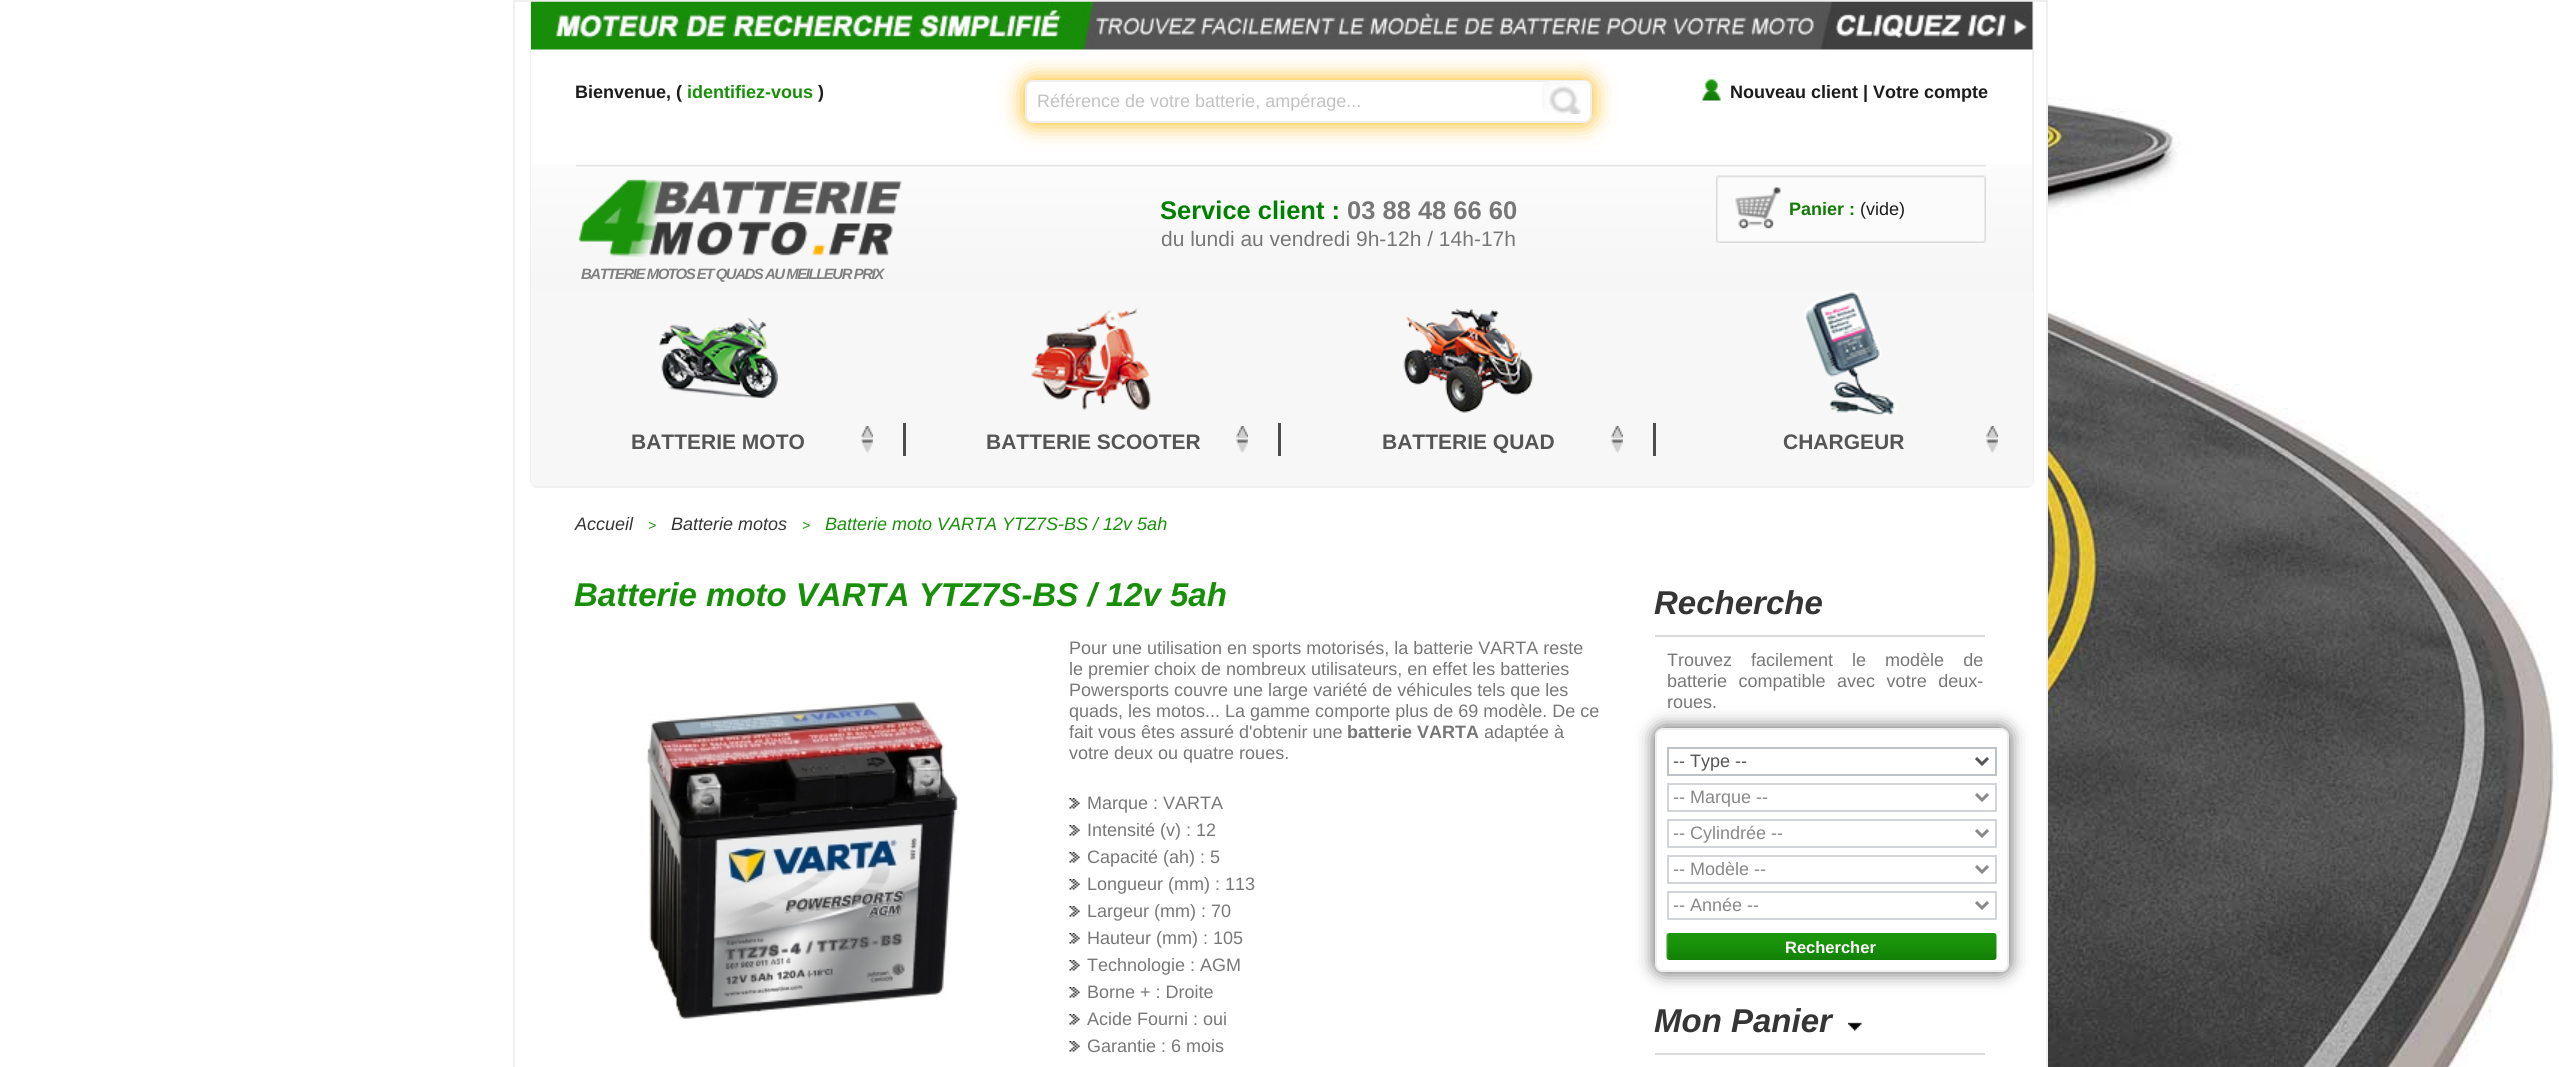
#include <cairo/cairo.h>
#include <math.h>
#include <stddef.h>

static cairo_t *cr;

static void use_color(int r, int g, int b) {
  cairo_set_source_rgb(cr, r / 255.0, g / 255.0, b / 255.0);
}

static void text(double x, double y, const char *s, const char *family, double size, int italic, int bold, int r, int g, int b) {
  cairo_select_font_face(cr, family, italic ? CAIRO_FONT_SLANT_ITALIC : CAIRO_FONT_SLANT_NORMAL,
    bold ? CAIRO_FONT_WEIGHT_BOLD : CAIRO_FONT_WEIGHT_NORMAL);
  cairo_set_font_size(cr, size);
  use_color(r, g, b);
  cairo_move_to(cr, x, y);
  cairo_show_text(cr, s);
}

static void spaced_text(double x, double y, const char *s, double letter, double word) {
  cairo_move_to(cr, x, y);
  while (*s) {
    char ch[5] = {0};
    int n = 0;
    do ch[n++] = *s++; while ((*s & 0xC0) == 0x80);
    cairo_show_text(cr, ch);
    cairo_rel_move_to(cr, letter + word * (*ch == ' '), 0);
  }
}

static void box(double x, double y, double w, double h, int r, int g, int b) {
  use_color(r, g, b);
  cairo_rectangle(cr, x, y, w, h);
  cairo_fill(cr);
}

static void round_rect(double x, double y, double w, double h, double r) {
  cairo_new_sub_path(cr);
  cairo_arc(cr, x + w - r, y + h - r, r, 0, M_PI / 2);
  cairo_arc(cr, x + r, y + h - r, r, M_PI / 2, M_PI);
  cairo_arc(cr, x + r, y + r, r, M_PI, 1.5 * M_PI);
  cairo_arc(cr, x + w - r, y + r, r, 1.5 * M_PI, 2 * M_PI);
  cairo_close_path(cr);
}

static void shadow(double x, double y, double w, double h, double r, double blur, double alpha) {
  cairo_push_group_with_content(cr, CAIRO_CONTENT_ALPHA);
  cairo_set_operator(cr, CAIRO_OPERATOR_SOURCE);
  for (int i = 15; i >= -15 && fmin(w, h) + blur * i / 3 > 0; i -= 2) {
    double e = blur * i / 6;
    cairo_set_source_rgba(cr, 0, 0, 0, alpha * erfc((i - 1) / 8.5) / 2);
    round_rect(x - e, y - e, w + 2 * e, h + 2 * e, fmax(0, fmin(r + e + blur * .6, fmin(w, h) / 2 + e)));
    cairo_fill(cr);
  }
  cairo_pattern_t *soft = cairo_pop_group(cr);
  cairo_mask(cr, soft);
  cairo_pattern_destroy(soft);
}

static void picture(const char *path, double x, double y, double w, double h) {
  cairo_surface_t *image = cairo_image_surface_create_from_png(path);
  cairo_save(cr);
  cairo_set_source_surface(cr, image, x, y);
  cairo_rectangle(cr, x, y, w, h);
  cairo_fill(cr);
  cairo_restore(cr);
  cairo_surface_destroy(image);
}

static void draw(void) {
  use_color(255, 255, 255);
  cairo_paint(cr);
  picture("img_01.png", 2048, 6, 509, 1061);
  cairo_rectangle(cr, 514, 1, 1533, 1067);
  use_color(240, 238, 238);
  cairo_stroke(cr);
  picture("img_02.png", 531, 164, 1501, 127);
  cairo_set_fill_rule(cr, CAIRO_FILL_RULE_EVEN_ODD);
  cairo_new_path(cr);
  cairo_move_to(cr, 530, 2);
  cairo_line_to(cr, 2034, 2);
  cairo_line_to(cr, 2034, 480);
  cairo_curve_to(cr, 2034, 484, 2031, 488, 2026, 488);
  cairo_line_to(cr, 537, 488);
  cairo_curve_to(cr, 533, 488, 530, 484, 530, 480);
  cairo_close_path(cr);
  cairo_move_to(cr, 531, 2);
  cairo_line_to(cr, 2032, 2);
  cairo_line_to(cr, 2032, 480);
  cairo_curve_to(cr, 2032, 483, 2030, 486, 2026, 486);
  cairo_line_to(cr, 537, 486);
  cairo_curve_to(cr, 534, 486, 531, 483, 531, 480);
  cairo_close_path(cr);
  cairo_fill(cr);
  use_color(253, 179, 0);
  shadow(1025, 80, 567, 43, 8, 11, 1);
  picture("img_03.png", 531, 1, 1502, 49);
  use_color(255, 255, 255);
  round_rect(1026, 81, 565, 41, 7);
  cairo_fill_preserve(cr);
  use_color(240, 238, 238);
  cairo_stroke(cr);
  picture("img_04.png", 1542, 81, 47, 33);
  picture("img_05.png", 1702, 79, 19, 22);
  picture("img_06.png", 1716, 175, 270, 68);
  box(531, 291, 1502, 195, 247, 247, 247);
  box(903, 423, 3, 33, 77, 77, 77);
  picture("img_07.png", 861, 426, 12, 27);
  picture("img_08.png", 659, 317, 120, 82);
  box(1278, 423, 3, 33, 77, 77, 77);
  picture("img_09.png", 1236, 426, 12, 27);
  picture("img_10.png", 1031, 307, 120, 103);
  box(1653, 423, 3, 33, 77, 77, 77);
  picture("img_07.png", 1611, 426, 12, 27);
  picture("img_11.png", 1403, 308, 131, 105);
  picture("img_09.png", 1986, 426, 12, 27);
  picture("img_12.png", 1804, 291, 93, 125);
  picture("img_13.png", 578, 179, 324, 78);
  picture("img_14.png", 646, 701, 312, 318);
  picture("img_15.png", 1069, 798, 11, 11);
  picture("img_15.png", 1069, 825, 11, 11);
  picture("img_15.png", 1069, 852, 11, 11);
  picture("img_15.png", 1069, 879, 11, 11);
  picture("img_15.png", 1069, 906, 11, 11);
  picture("img_15.png", 1069, 933, 11, 11);
  picture("img_15.png", 1069, 960, 11, 11);
  picture("img_15.png", 1069, 987, 11, 11);
  picture("img_15.png", 1069, 1014, 11, 11);
  picture("img_15.png", 1069, 1041, 11, 11);
  box(1655, 635, 330, 2, 218, 218, 218);
  use_color(85, 85, 85);
  shadow(1655, 728, 354, 244, 8, 9, 1);
  use_color(255, 255, 255);
  round_rect(1656, 729, 352, 242, 7);
  cairo_fill_preserve(cr);
  use_color(240, 238, 238);
  cairo_stroke(cr);
  cairo_rectangle(cr, 1668, 748, 328, 27);
  use_color(189, 194, 201);
  cairo_stroke(cr);
  cairo_new_path(cr);
  cairo_move_to(cr, 1976, 758);
  cairo_line_to(cr, 1982, 764);
  cairo_line_to(cr, 1988, 758);
  use_color(85, 85, 85);
  cairo_set_line_width(cr, 3);
  cairo_stroke(cr);
  cairo_rectangle(cr, 1668, 784, 328, 27);
  use_color(209, 212, 217);
  cairo_set_line_width(cr, 2);
  cairo_stroke(cr);
  cairo_new_path(cr);
  cairo_move_to(cr, 1976, 794);
  cairo_line_to(cr, 1982, 800);
  cairo_line_to(cr, 1988, 794);
  use_color(136, 136, 136);
  cairo_set_line_width(cr, 3);
  cairo_stroke(cr);
  cairo_rectangle(cr, 1668, 820, 328, 27);
  use_color(209, 212, 217);
  cairo_set_line_width(cr, 2);
  cairo_stroke(cr);
  cairo_new_path(cr);
  cairo_move_to(cr, 1976, 830);
  cairo_line_to(cr, 1982, 836);
  cairo_line_to(cr, 1988, 830);
  use_color(136, 136, 136);
  cairo_set_line_width(cr, 3);
  cairo_stroke(cr);
  cairo_rectangle(cr, 1668, 856, 328, 27);
  use_color(209, 212, 217);
  cairo_set_line_width(cr, 2);
  cairo_stroke(cr);
  cairo_new_path(cr);
  cairo_move_to(cr, 1976, 866);
  cairo_line_to(cr, 1982, 872);
  cairo_line_to(cr, 1988, 866);
  use_color(136, 136, 136);
  cairo_set_line_width(cr, 3);
  cairo_stroke(cr);
  cairo_rectangle(cr, 1668, 892, 328, 27);
  use_color(209, 212, 217);
  cairo_set_line_width(cr, 2);
  cairo_stroke(cr);
  cairo_new_path(cr);
  cairo_move_to(cr, 1976, 902);
  cairo_line_to(cr, 1982, 908);
  cairo_line_to(cr, 1988, 902);
  use_color(136, 136, 136);
  cairo_set_line_width(cr, 3);
  cairo_stroke(cr);
  picture("img_16.png", 1666, 933, 331, 27);
  box(1655, 1053, 330, 2, 218, 218, 218);
  picture("img_17.png", 1848, 1022, 14, 9);
  text(575, 98, "Bienvenue, (", "Liberation Sans", 18, 0, 1, 28, 28, 28);
  text(687, 98, "identifiez-vous", "Liberation Sans", 18, 0, 1, 24, 143, 9);
  text(818, 98, ")", "Liberation Sans", 18, 0, 1, 28, 28, 28);
  text(1037, 107, "Référence de votre batterie, ampérage...", "Liberation Sans", 18, 0, 0, 194, 194, 194);
  text(1730, 98, "Nouveau client | Votre compte", "Liberation Sans", 18, 0, 1, 28, 28, 28);
  text(1789, 215, "Panier :", "Liberation Sans", 18, 0, 1, 18, 123, 5);
  text(1860, 215, "(vide)", "Liberation Sans", 18, 0, 0, 28, 28, 28);
  text(631, 449, "BATTERIE MOTO", "Liberation Sans", 21, 0, 1, 85, 85, 85);
  text(986, 449, "BATTERIE SCOOTER", "Liberation Sans", 21, 0, 1, 85, 85, 85);
  text(1382, 449, "BATTERIE QUAD", "Liberation Sans", 21, 0, 1, 85, 85, 85);
  text(1783, 449, "CHARGEUR", "Liberation Sans", 21, 0, 1, 85, 85, 85);
  text(1160, 219, "Service client :", "Liberation Sans", 25.5, 0, 1, 0, 128, 0);
  text(1347, 219, "03 88 48 66 60", "Liberation Sans", 25.5, 0, 1, 119, 119, 119);
  text(1161, 246, "du lundi au vendredi 9h-12h / 14h-17h", "Liberation Sans", 21, 0, 0, 119, 119, 119);
  cairo_select_font_face(cr, "Liberation Sans", CAIRO_FONT_SLANT_ITALIC, CAIRO_FONT_WEIGHT_BOLD);
  cairo_set_font_size(cr, 15);
  use_color(128, 128, 128);
  spaced_text(581, 279, "BATTERIE MOTOS ET QUADS AU MEILLEUR PRIX", -1.5, 0);
  text(575, 530, "Accueil", "Liberation Sans", 18, 1, 0, 53, 53, 53);
  text(648, 530, ">", "Liberation Sans", 14, 1, 0, 24, 143, 9);
  text(671, 530, "Batterie motos", "Liberation Sans", 18, 1, 0, 53, 53, 53);
  text(802, 530, ">", "Liberation Sans", 14, 1, 0, 24, 143, 9);
  text(825, 530, "Batterie moto VARTA YTZ7S-BS / 12v 5ah", "Liberation Sans", 18, 1, 0, 24, 143, 9);
  text(574, 606, "Batterie moto VARTA YTZ7S-BS / 12v 5ah", "Liberation Sans", 33, 1, 1, 24, 143, 9);
  text(1069, 654, "Pour une utilisation en sports motorisés, la batterie VARTA reste", "Liberation Sans", 18, 0, 0, 119, 119, 119);
  text(1069, 675, "le premier choix de nombreux utilisateurs, en effet les batteries", "Liberation Sans", 18, 0, 0, 119, 119, 119);
  text(1069, 696, "Powersports couvre une large variété de véhicules tels que les", "Liberation Sans", 18, 0, 0, 119, 119, 119);
  text(1069, 717, "quads, les motos... La gamme comporte plus de 69 modèle. De ce", "Liberation Sans", 18, 0, 0, 119, 119, 119);
  text(1069, 738, "fait vous êtes assuré d'obtenir une", "Liberation Sans", 18, 0, 0, 119, 119, 119);
  text(1347, 738, "batterie VARTA", "Liberation Sans", 18, 0, 1, 119, 119, 119);
  text(1484, 738, "adaptée à", "Liberation Sans", 18, 0, 0, 119, 119, 119);
  text(1069, 759, "votre deux ou quatre roues.", "Liberation Sans", 18, 0, 0, 119, 119, 119);
  text(1087, 809, "Marque : VARTA", "Liberation Sans", 18, 0, 0, 119, 119, 119);
  text(1087, 836, "Intensité (v) : 12", "Liberation Sans", 18, 0, 0, 119, 119, 119);
  text(1087, 863, "Capacité (ah) : 5", "Liberation Sans", 18, 0, 0, 119, 119, 119);
  text(1087, 890, "Longueur (mm) : 113", "Liberation Sans", 18, 0, 0, 119, 119, 119);
  text(1087, 917, "Largeur (mm) : 70", "Liberation Sans", 18, 0, 0, 119, 119, 119);
  text(1087, 944, "Hauteur (mm) : 105", "Liberation Sans", 18, 0, 0, 119, 119, 119);
  text(1087, 971, "Technologie : AGM", "Liberation Sans", 18, 0, 0, 119, 119, 119);
  text(1087, 998, "Borne + : Droite", "Liberation Sans", 18, 0, 0, 119, 119, 119);
  text(1087, 1025, "Acide Fourni : oui", "Liberation Sans", 18, 0, 0, 119, 119, 119);
  text(1087, 1052, "Garantie : 6 mois", "Liberation Sans", 18, 0, 0, 119, 119, 119);
  text(1654, 614, "Recherche", "Liberation Sans", 33, 1, 1, 53, 53, 53);
  cairo_select_font_face(cr, "Liberation Sans", CAIRO_FONT_SLANT_NORMAL, CAIRO_FONT_WEIGHT_NORMAL);
  cairo_set_font_size(cr, 18);
  use_color(119, 119, 119);
  spaced_text(1667, 666, "Trouvez facilement le modèle de", 0, 14);
  spaced_text(1667, 687, "batterie compatible avec votre deux-", 0, 6.5);
  text(1667, 708, "roues.", "Liberation Sans", 18, 0, 0, 119, 119, 119);
  text(1673, 767, "-- Type --", "Liberation Sans", 18, 0, 0, 85, 85, 85);
  text(1673, 803, "-- Marque --", "Liberation Sans", 18, 0, 0, 136, 136, 136);
  text(1673, 839, "-- Cylindrée --", "Liberation Sans", 18, 0, 0, 136, 136, 136);
  text(1673, 875, "-- Modèle --", "Liberation Sans", 18, 0, 0, 136, 136, 136);
  text(1673, 911, "-- Année --", "Liberation Sans", 18, 0, 0, 136, 136, 136);
  text(1785, 953, "Rechercher", "Liberation Sans", 16.5, 0, 1, 255, 255, 255);
  text(1654, 1032, "Mon Panier", "Liberation Sans", 33, 1, 1, 53, 53, 53);
}

int main(void) {
  cairo_surface_t *surface = cairo_image_surface_create(CAIRO_FORMAT_RGB24, 2559, 1067);
  cr = cairo_create(surface);
  cairo_font_options_t *options = cairo_font_options_create();
  cairo_font_options_set_hint_metrics(options, CAIRO_HINT_METRICS_OFF);
  cairo_font_options_set_hint_style(options, CAIRO_HINT_STYLE_NONE);
  cairo_set_font_options(cr, options);
  cairo_set_miter_limit(cr, 4);
  draw();
  cairo_surface_write_to_png(surface, "out.png");
  cairo_font_options_destroy(options);
  cairo_destroy(cr);
  cairo_surface_destroy(surface);
  return 0;
}
